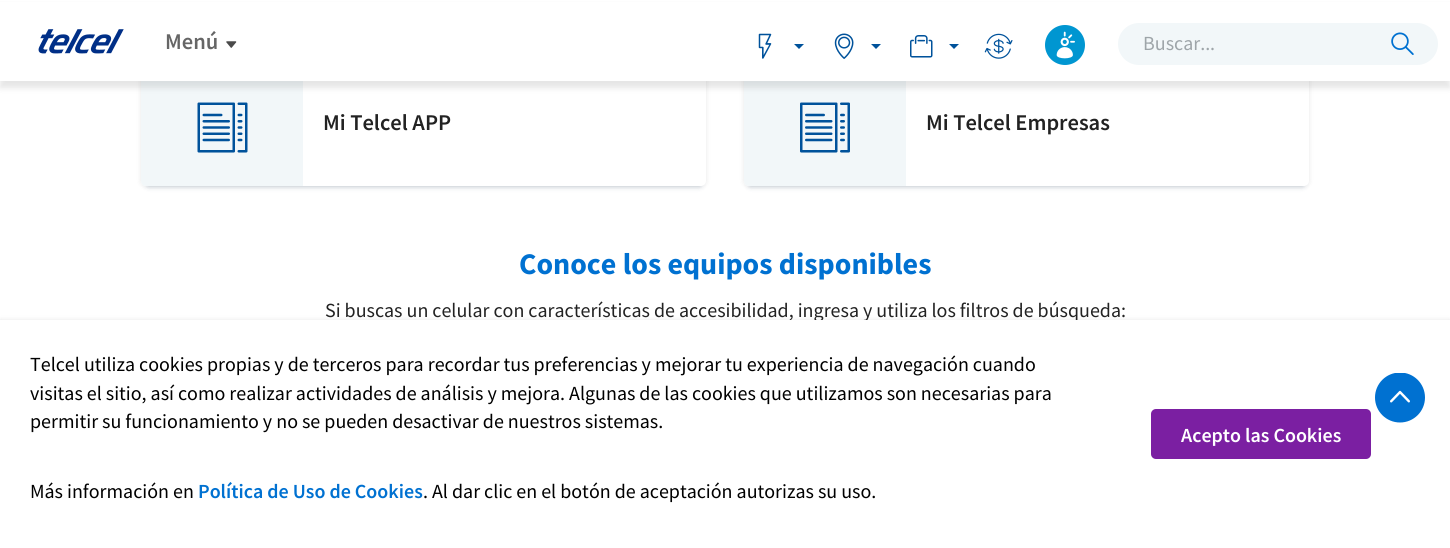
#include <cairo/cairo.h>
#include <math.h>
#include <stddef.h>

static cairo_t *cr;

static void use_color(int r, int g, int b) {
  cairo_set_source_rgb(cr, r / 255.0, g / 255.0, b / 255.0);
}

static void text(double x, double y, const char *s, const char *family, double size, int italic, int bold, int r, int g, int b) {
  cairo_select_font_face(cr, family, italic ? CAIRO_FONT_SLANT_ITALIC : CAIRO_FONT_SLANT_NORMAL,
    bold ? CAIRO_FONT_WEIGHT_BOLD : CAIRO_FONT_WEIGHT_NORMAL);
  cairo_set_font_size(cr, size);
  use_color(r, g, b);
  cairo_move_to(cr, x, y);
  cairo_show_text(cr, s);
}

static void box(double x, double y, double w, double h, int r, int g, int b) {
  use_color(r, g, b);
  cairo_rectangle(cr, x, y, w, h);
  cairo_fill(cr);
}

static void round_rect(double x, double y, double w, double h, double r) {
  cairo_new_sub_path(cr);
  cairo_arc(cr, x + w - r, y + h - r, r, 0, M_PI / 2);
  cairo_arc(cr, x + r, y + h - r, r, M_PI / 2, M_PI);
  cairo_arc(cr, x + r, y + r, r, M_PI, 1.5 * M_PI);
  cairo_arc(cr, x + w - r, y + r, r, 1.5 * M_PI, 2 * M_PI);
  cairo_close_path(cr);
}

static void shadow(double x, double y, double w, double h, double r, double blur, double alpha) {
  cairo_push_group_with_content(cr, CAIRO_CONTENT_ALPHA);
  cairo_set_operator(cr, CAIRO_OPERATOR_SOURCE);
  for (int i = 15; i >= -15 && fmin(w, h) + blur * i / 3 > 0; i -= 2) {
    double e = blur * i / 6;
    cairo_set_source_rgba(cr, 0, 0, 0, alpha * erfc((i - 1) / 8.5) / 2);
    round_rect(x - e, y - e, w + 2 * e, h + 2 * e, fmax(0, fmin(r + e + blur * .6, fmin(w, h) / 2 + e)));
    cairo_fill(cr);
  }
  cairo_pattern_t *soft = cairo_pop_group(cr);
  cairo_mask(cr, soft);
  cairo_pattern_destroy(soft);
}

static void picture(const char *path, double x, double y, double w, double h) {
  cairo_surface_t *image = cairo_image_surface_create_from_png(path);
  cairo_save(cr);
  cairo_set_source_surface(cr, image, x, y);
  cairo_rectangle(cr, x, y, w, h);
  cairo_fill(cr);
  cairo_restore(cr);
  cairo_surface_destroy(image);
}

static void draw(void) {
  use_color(255, 255, 255);
  cairo_paint(cr);
  use_color(0, 0, 0);
  shadow(141, 69, 565, 117, 5, 2.5, 0.1);
  use_color(0, 34, 77);
  shadow(148, 81, 552, 105, 0, 3, 0.25);
  use_color(255, 255, 255);
  round_rect(141, 69, 565, 117, 5);
  cairo_fill(cr);
  use_color(242, 247, 249);
  cairo_new_path(cr);
  cairo_move_to(cr, 146, 69);
  cairo_line_to(cr, 303, 69);
  cairo_line_to(cr, 303, 186);
  cairo_line_to(cr, 146, 186);
  cairo_curve_to(cr, 143, 186, 141, 184, 141, 181);
  cairo_line_to(cr, 141, 74);
  cairo_curve_to(cr, 141, 71, 143, 69, 146, 69);
  cairo_close_path(cr);
  cairo_fill(cr);
  use_color(0, 0, 0);
  shadow(744, 69, 565, 117, 5, 2.5, 0.1);
  use_color(0, 34, 77);
  shadow(750, 81, 553, 105, 0, 3, 0.25);
  use_color(255, 255, 255);
  round_rect(744, 69, 565, 117, 5);
  cairo_fill(cr);
  use_color(242, 247, 249);
  cairo_new_path(cr);
  cairo_move_to(cr, 749, 69);
  cairo_line_to(cr, 906, 69);
  cairo_line_to(cr, 906, 186);
  cairo_line_to(cr, 749, 186);
  cairo_curve_to(cr, 746, 186, 744, 184, 744, 181);
  cairo_line_to(cr, 744, 74);
  cairo_curve_to(cr, 744, 71, 746, 69, 749, 69);
  cairo_close_path(cr);
  cairo_fill(cr);
  use_color(0, 0, 0);
  shadow(0, 6, 1450, 82, 0, 3, 0.1);
  box(0, 2, 1450, 79, 255, 255, 255);
  picture("img_01.png", 38, 29, 86, 25);
  picture("img_02.png", 226, 41, 11, 7);
  picture("img_03.png", 758, 33, 14, 26);
  use_color(0, 82, 155);
  cairo_new_path(cr);
  cairo_move_to(cr, 794, 44);
  cairo_line_to(cr, 804, 44);
  cairo_line_to(cr, 799, 49);
  cairo_close_path(cr);
  cairo_fill(cr);
  picture("img_04.png", 834, 33, 20, 26);
  cairo_new_path(cr);
  cairo_move_to(cr, 871, 44);
  cairo_line_to(cr, 881, 44);
  cairo_line_to(cr, 876, 49);
  cairo_close_path(cr);
  cairo_fill(cr);
  picture("img_05.png", 910, 35, 23, 23);
  cairo_new_path(cr);
  cairo_move_to(cr, 949, 44);
  cairo_line_to(cr, 959, 44);
  cairo_line_to(cr, 954, 49);
  cairo_close_path(cr);
  cairo_fill(cr);
  picture("img_06.png", 984, 33, 29, 26);
  picture("img_07.png", 1045, 25, 40, 40);
  use_color(242, 247, 249);
  round_rect(1118, 23, 320, 42, 21);
  cairo_fill(cr);
  picture("img_08.png", 1391, 32, 23, 23);
  picture("img_09.png", 197, 102, 51, 51);
  picture("img_10.png", 800, 102, 50, 51);
  use_color(0, 0, 0);
  shadow(0, 320, 1450, 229, 0, 2.5, 0.1);
  text(165, 49, "Menú", "Source Sans Pro SemiBold", 22.5, 0, 0, 102, 102, 102);
  text(1143, 50, "Buscar...", "Source Sans Pro", 20, 0, 0, 158, 165, 169);
  text(323, 130, "Mi Telcel APP", "Source Sans Pro SemiBold", 22.5, 0, 0, 34, 34, 34);
  text(926, 130, "Mi Telcel Empresas", "Source Sans Pro SemiBold", 22.5, 0, 0, 34, 34, 34);
  text(519, 274, "Conoce los equipos disponibles", "Source Sans Pro", 30, 0, 1, 0, 113, 209);
  text(325, 317, "Si buscas un celular con características de accesibilidad, ingresa y utiliza los filtros de búsqueda:", "Source Sans Pro", 20, 0, 0, 34, 34, 34);
  box(0, 320, 1450, 228, 255, 255, 255);
  text(30, 371, "Telcel utiliza cookies propias y de terceros para recordar tus preferencias y mejorar tu experiencia de navegación cuando", "Source Sans Pro", 20, 0, 0, 0, 0, 0);
  text(30, 400, "visitas el sitio, así como realizar actividades de análisis y mejora. Algunas de las cookies que utilizamos son necesarias para", "Source Sans Pro", 20, 0, 0, 0, 0, 0);
  text(30, 428, "permitir su funcionamiento y no se pueden desactivar de nuestros sistemas.", "Source Sans Pro", 20, 0, 0, 0, 0, 0);
  text(30, 498, "Más información en", "Source Sans Pro", 20, 0, 0, 0, 0, 0);
  text(198, 498, "Política de Uso de Cookies", "Source Sans Pro SemiBold", 20, 0, 0, 0, 113, 209);
  text(423, 498, ". Al dar clic en el botón de aceptación autorizas su uso.", "Source Sans Pro", 20, 0, 0, 0, 0, 0);
  use_color(123, 31, 162);
  round_rect(1151, 409, 220, 50, 5);
  cairo_fill(cr);
  text(1181, 442, "Acepto las Cookies", "Source Sans Pro SemiBold", 20, 0, 0, 255, 255, 255);
  picture("img_11.png", 1375, 373, 50, 50);
}

int main(void) {
  cairo_surface_t *surface = cairo_image_surface_create(CAIRO_FORMAT_RGB24, 1450, 548);
  cr = cairo_create(surface);
  cairo_font_options_t *options = cairo_font_options_create();
  cairo_font_options_set_hint_metrics(options, CAIRO_HINT_METRICS_OFF);
  cairo_font_options_set_hint_style(options, CAIRO_HINT_STYLE_NONE);
  cairo_set_font_options(cr, options);
  cairo_set_miter_limit(cr, 4);
  draw();
  cairo_surface_write_to_png(surface, "out.png");
  cairo_font_options_destroy(options);
  cairo_destroy(cr);
  cairo_surface_destroy(surface);
  return 0;
}
